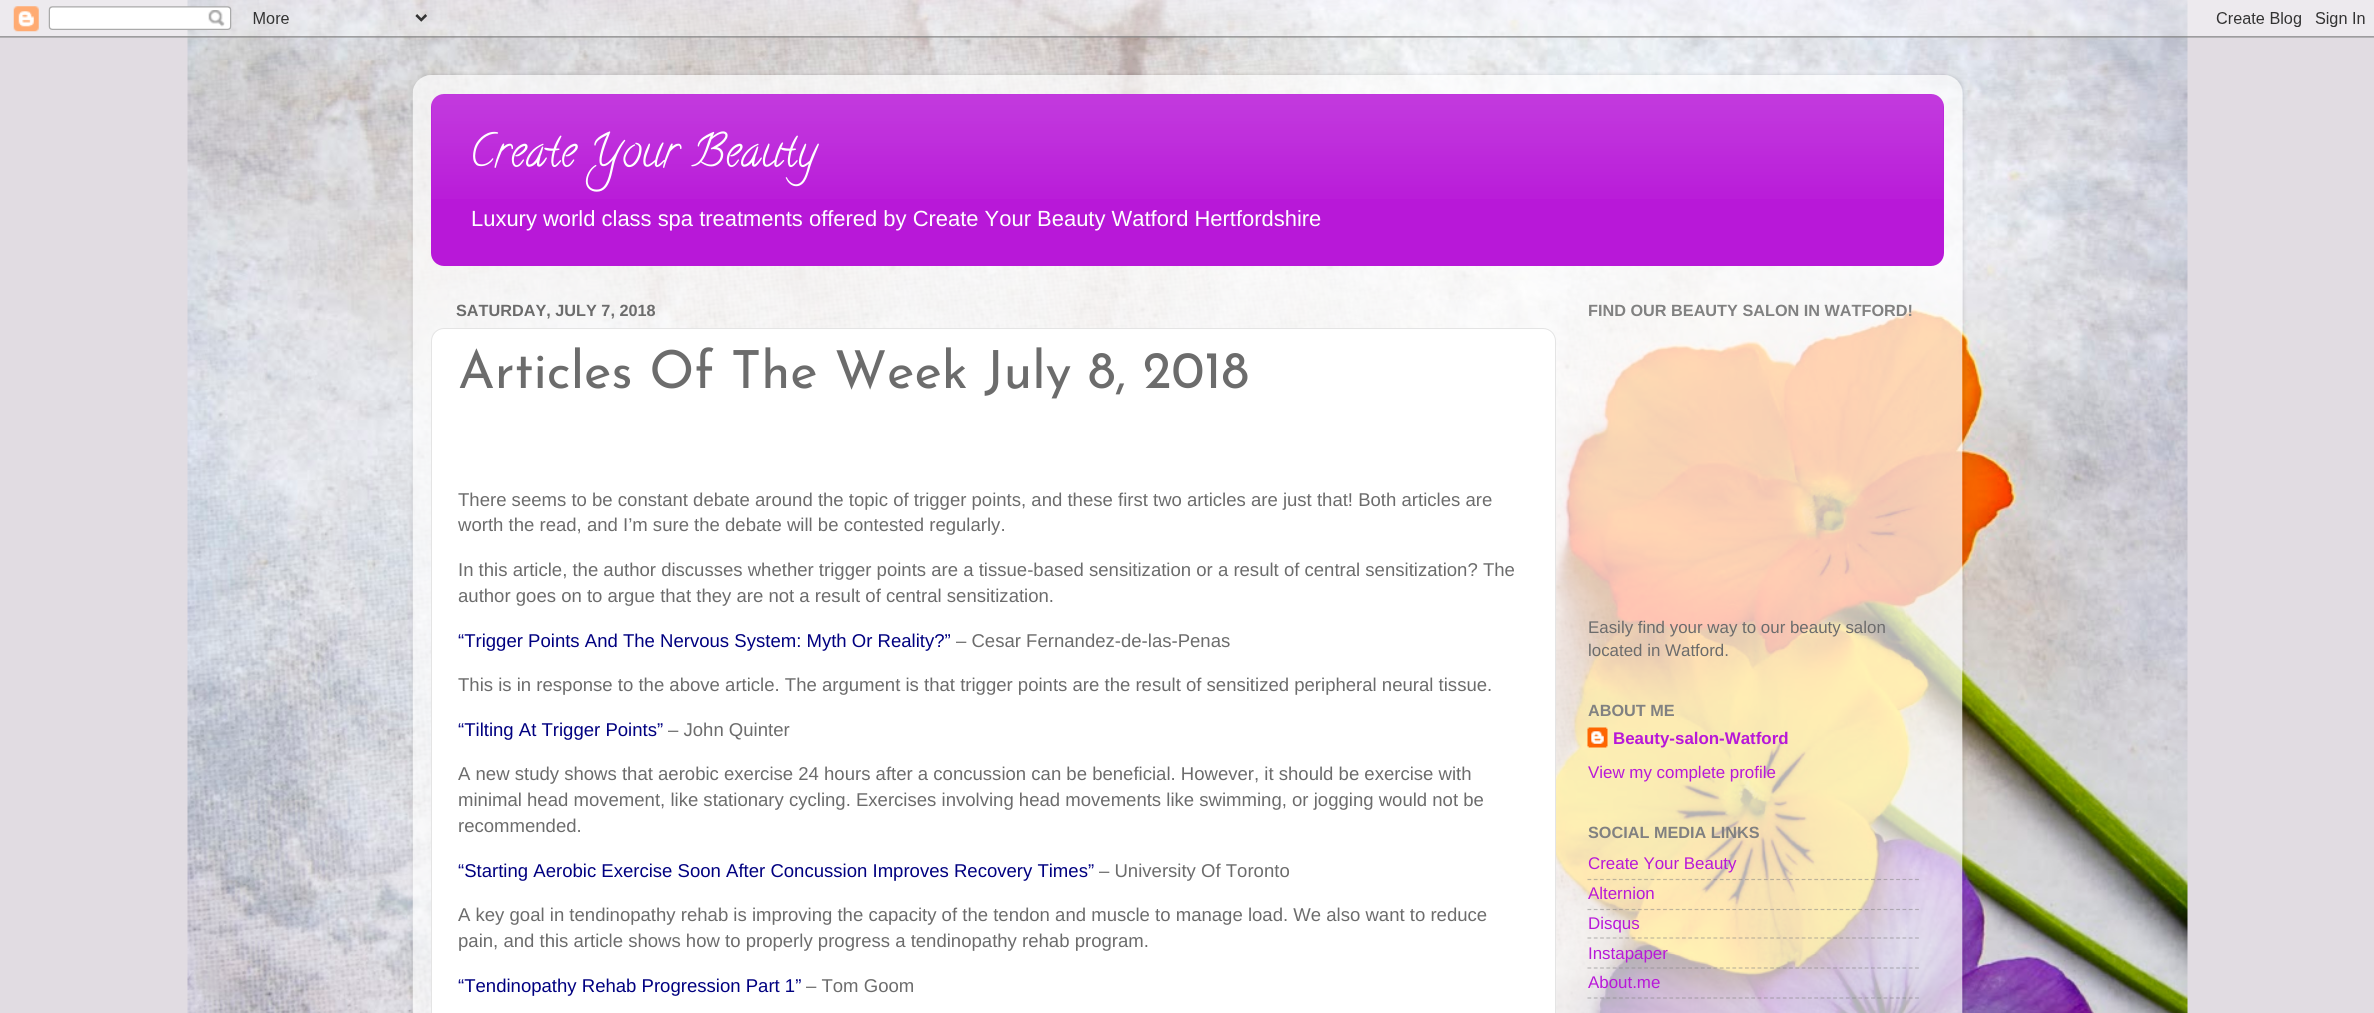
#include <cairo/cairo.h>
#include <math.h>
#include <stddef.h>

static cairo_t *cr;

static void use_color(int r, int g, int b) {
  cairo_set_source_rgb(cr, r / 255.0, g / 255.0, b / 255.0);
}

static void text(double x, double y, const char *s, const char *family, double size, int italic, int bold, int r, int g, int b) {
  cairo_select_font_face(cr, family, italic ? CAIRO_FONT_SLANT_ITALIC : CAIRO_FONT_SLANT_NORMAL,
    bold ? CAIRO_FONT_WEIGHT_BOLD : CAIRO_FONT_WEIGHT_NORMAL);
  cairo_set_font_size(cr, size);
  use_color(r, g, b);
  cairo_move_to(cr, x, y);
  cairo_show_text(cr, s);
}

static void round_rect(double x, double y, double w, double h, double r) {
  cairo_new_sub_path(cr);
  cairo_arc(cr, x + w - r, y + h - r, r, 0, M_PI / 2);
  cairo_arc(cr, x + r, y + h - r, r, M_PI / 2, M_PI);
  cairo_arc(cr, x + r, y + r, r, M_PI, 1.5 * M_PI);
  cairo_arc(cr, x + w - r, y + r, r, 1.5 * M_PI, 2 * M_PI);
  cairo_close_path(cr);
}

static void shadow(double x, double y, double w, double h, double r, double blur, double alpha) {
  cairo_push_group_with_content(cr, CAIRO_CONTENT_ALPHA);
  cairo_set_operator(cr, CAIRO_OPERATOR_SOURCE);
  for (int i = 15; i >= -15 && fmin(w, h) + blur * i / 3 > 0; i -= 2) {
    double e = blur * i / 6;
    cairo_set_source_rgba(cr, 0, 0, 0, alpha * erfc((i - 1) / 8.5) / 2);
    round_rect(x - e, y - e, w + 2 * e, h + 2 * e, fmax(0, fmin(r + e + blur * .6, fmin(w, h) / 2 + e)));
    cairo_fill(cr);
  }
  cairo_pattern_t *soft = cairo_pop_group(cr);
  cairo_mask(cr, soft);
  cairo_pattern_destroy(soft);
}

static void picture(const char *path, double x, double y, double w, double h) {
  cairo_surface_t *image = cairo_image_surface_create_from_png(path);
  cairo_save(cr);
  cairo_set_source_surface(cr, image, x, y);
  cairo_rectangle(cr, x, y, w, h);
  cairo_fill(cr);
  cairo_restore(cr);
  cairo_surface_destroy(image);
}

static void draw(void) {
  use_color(225, 220, 226);
  cairo_paint(cr);
  picture("img_01.png", 187, 0, 2001, 1013);
  picture("img_02.png", 0, 0, 2374, 38);
  cairo_save(cr);
  cairo_set_fill_rule(cr, CAIRO_FILL_RULE_EVEN_ODD);
  cairo_new_path(cr);
  cairo_move_to(cr, 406, 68);
  cairo_line_to(cr, 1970, 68);
  cairo_line_to(cr, 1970, 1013);
  cairo_line_to(cr, 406, 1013);
  cairo_close_path(cr);
  cairo_move_to(cr, 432, 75);
  cairo_line_to(cr, 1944, 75);
  cairo_curve_to(cr, 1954.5, 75, 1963, 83.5, 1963, 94);
  cairo_line_to(cr, 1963, 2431);
  cairo_curve_to(cr, 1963, 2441.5, 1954.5, 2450, 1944, 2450);
  cairo_line_to(cr, 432, 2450);
  cairo_curve_to(cr, 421.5, 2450, 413, 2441.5, 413, 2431);
  cairo_line_to(cr, 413, 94);
  cairo_curve_to(cr, 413, 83.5, 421.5, 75, 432, 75);
  cairo_close_path(cr);
  cairo_clip(cr);
  use_color(0, 0, 0);
  shadow(413, 75, 1550, 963, 19, 2, 0.15);
  cairo_restore(cr);
  picture("img_03.png", 412, 75, 1551, 938);
  use_color(184, 24, 216);
  round_rect(431, 94, 1513, 172, 13);
  cairo_fill(cr);
  picture("img_04.png", 431, 94, 1513, 105);
  use_color(255, 255, 255);
  round_rect(431.5, 328.5, 1124, 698, 12.5);
  cairo_fill_preserve(cr);
  use_color(228, 228, 228);
  cairo_set_line_width(cr, 1);
  cairo_stroke(cr);
  picture("img_05.png", 1587, 727, 21, 21);
  cairo_new_path(cr);
  cairo_move_to(cr, 1587.5, 879.5);
  cairo_line_to(cr, 1919, 879.5);
  cairo_set_source_rgba(cr, 0.502, 0.502, 0.502, 0.5);
  cairo_set_line_width(cr, 1.2);
  cairo_set_dash(cr, (double[]){3.75, 2.55}, 2, 0);
  cairo_stroke(cr);
  cairo_new_path(cr);
  cairo_move_to(cr, 1587.5, 909.5);
  cairo_line_to(cr, 1919, 909.5);
  cairo_stroke(cr);
  cairo_new_path(cr);
  cairo_move_to(cr, 1587.5, 938);
  cairo_line_to(cr, 1919, 938);
  cairo_stroke(cr);
  cairo_new_path(cr);
  cairo_move_to(cr, 1587.5, 968);
  cairo_line_to(cr, 1919, 968);
  cairo_stroke(cr);
  cairo_new_path(cr);
  cairo_move_to(cr, 1587.5, 998);
  cairo_line_to(cr, 1919, 998);
  cairo_stroke(cr);
  text(469, 165, "Create Your Beauty", "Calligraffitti", 45, 0, 0, 255, 255, 255);
  text(471, 226, "Luxury world class spa treatments offered by Create Your Beauty Watford Hertfordshire", "Liberation Sans", 21.95, 0, 0, 255, 255, 255);
  text(456, 316, "SATURDAY, JULY 7, 2018", "Liberation Sans", 16.25, 0, 1, 108, 108, 108);
  text(458, 388, "Articles Of The Week July 8, 2018", "Josefin Sans Thin", 52.5, 0, 0, 108, 108, 108);
  text(458, 506, "There seems to be constant debate around the topic of trigger points, and these first two articles are just that! Both articles are", "Liberation Sans", 18.55, 0, 0, 108, 108, 108);
  text(458, 531, "worth the read, and I’m sure the debate will be contested regularly.", "Liberation Sans", 18.55, 0, 0, 108, 108, 108);
  text(458, 576, "In this article, the author discusses whether trigger points are a tissue-based sensitization or a result of central sensitization? The", "Liberation Sans", 18.55, 0, 0, 108, 108, 108);
  text(458, 602, "author goes on to argue that they are not a result of central sensitization.", "Liberation Sans", 18.55, 0, 0, 108, 108, 108);
  text(458, 647, "“Trigger Points And The Nervous System: Myth Or Reality?”", "Liberation Sans", 18.55, 0, 0, 0, 0, 128);
  text(956, 647, "– Cesar Fernandez-de-las-Penas", "Liberation Sans", 18.55, 0, 0, 108, 108, 108);
  text(458, 691, "This is in response to the above article. The argument is that trigger points are the result of sensitized peripheral neural tissue.", "Liberation Sans", 18.55, 0, 0, 108, 108, 108);
  text(458, 736, "“Tilting At Trigger Points”", "Liberation Sans", 18.55, 0, 0, 0, 0, 128);
  text(668, 736, "– John Quinter", "Liberation Sans", 18.55, 0, 0, 108, 108, 108);
  text(458, 780, "A new study shows that aerobic exercise 24 hours after a concussion can be beneficial. However, it should be exercise with", "Liberation Sans", 18.55, 0, 0, 108, 108, 108);
  text(458, 806, "minimal head movement, like stationary cycling. Exercises involving head movements like swimming, or jogging would not be", "Liberation Sans", 18.55, 0, 0, 108, 108, 108);
  text(458, 832, "recommended.", "Liberation Sans", 18.55, 0, 0, 108, 108, 108);
  text(458, 877, "“Starting Aerobic Exercise Soon After Concussion Improves Recovery Times”", "Liberation Sans", 18.55, 0, 0, 0, 0, 128);
  text(1099, 877, "– University Of Toronto", "Liberation Sans", 18.55, 0, 0, 108, 108, 108);
  text(458, 921, "A key goal in tendinopathy rehab is improving the capacity of the tendon and muscle to manage load. We also want to reduce", "Liberation Sans", 18.55, 0, 0, 108, 108, 108);
  text(458, 947, "pain, and this article shows how to properly progress a tendinopathy rehab program.", "Liberation Sans", 18.55, 0, 0, 108, 108, 108);
  text(458, 992, "“Tendinopathy Rehab Progression Part 1”", "Liberation Sans", 18.55, 0, 0, 0, 0, 128);
  text(806, 992, "– Tom Goom", "Liberation Sans", 18.55, 0, 0, 108, 108, 108);
  text(1588, 316, "FIND OUR BEAUTY SALON IN WATFORD!", "Liberation Sans", 16.25, 0, 1, 129, 129, 129);
  text(1588, 633, "Easily find your way to our beauty salon", "Liberation Sans", 16.9, 0, 0, 108, 108, 108);
  text(1588, 656, "located in Watford.", "Liberation Sans", 16.9, 0, 0, 108, 108, 108);
  text(1588, 716, "ABOUT ME", "Liberation Sans", 16.25, 0, 1, 129, 129, 129);
  text(1613, 744, "Beauty-salon-Watford", "Liberation Sans", 16.9, 0, 1, 184, 24, 216);
  text(1588, 778, "View my complete profile", "Liberation Sans", 16.9, 0, 0, 184, 24, 216);
  text(1588, 838, "SOCIAL MEDIA LINKS", "Liberation Sans", 16.25, 0, 1, 129, 129, 129);
  text(1588, 869, "Create Your Beauty", "Liberation Sans", 16.9, 0, 0, 184, 24, 216);
  text(1588, 899, "Alternion", "Liberation Sans", 16.9, 0, 0, 184, 24, 216);
  text(1588, 929, "Disqus", "Liberation Sans", 16.9, 0, 0, 184, 24, 216);
  text(1588, 959, "Instapaper", "Liberation Sans", 16.9, 0, 0, 184, 24, 216);
  text(1588, 988, "About.me", "Liberation Sans", 16.9, 0, 0, 184, 24, 216);
}

int main(void) {
  cairo_surface_t *surface = cairo_image_surface_create(CAIRO_FORMAT_RGB24, 2374, 1013);
  cr = cairo_create(surface);
  cairo_font_options_t *options = cairo_font_options_create();
  cairo_font_options_set_hint_metrics(options, CAIRO_HINT_METRICS_OFF);
  cairo_font_options_set_hint_style(options, CAIRO_HINT_STYLE_NONE);
  cairo_set_font_options(cr, options);
  cairo_set_miter_limit(cr, 4);
  draw();
  cairo_surface_write_to_png(surface, "out.png");
  cairo_font_options_destroy(options);
  cairo_destroy(cr);
  cairo_surface_destroy(surface);
  return 0;
}
